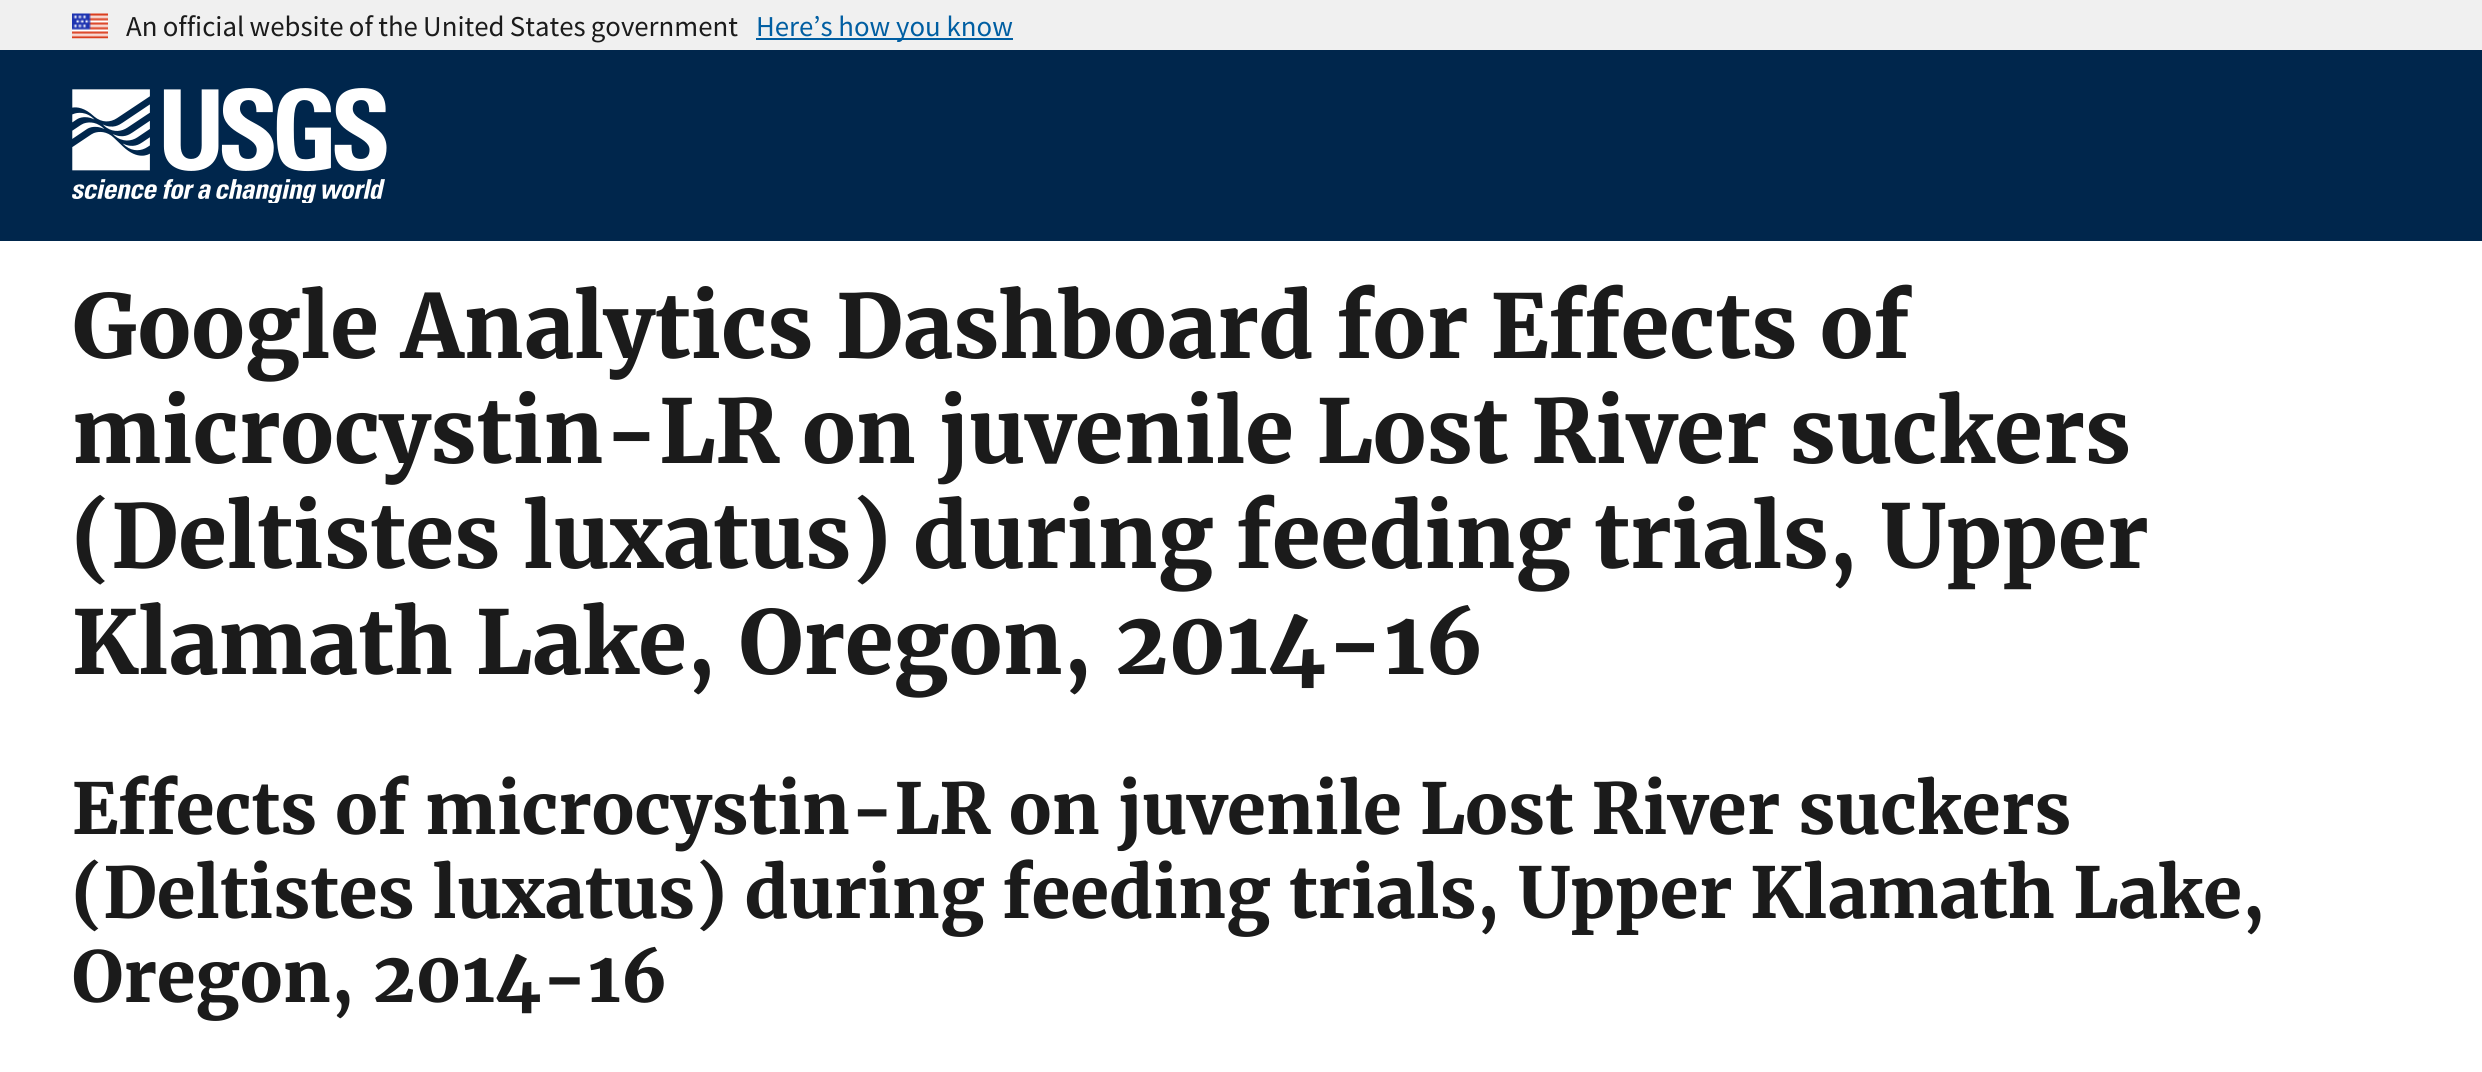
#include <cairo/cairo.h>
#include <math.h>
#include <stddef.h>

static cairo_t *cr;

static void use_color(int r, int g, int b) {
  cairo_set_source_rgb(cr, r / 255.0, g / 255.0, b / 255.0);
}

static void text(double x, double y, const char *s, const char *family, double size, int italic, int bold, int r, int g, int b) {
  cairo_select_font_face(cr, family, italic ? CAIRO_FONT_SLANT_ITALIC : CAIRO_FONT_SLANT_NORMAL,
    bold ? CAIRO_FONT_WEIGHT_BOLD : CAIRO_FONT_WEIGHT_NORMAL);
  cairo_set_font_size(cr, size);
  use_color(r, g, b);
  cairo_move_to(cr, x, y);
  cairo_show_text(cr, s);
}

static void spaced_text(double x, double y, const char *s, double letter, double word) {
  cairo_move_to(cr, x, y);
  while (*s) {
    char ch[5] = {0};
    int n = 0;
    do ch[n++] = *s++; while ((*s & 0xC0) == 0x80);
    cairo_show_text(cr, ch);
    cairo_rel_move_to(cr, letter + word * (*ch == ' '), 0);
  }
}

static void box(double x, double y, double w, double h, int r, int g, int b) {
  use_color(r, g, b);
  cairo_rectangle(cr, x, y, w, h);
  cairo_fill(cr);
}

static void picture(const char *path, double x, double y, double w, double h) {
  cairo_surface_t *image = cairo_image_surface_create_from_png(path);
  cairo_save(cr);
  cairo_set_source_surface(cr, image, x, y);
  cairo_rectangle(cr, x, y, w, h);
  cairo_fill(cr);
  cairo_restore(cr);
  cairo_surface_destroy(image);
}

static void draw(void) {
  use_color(255, 255, 255);
  cairo_paint(cr);
  box(0, 0, 2482, 50, 240, 240, 240);
  picture("img_01.png", 72, 13, 36, 26);
  box(756, 38, 257, 2, 0, 94, 162);
  box(0, 50, 2482, 191, 0, 38, 76);
  picture("img_02.png", 72, 88, 315, 115);
  cairo_select_font_face(cr, "Source Sans Pro", CAIRO_FONT_SLANT_NORMAL, CAIRO_FONT_WEIGHT_NORMAL);
  cairo_set_font_size(cr, 28.8);
  use_color(27, 27, 27);
  spaced_text(126, 36, "An official website of the United States government", 0, -0.5);
  text(756, 36, "Here’s how you know", "Source Sans Pro", 28.8, 0, 0, 0, 94, 162);
  text(72, 358, "Google Analytics Dashboard for Effects of", "Merriweather", 87.8, 0, 1, 27, 27, 27);
  text(72, 463, "microcystin-LR on juvenile Lost River suckers", "Merriweather", 87.8, 0, 1, 27, 27, 27);
  text(72, 568, "(Deltistes luxatus) during feeding trials, Upper", "Merriweather", 87.8, 0, 1, 27, 27, 27);
  text(72, 674, "Klamath Lake, Oregon, 2014−16", "Merriweather", 87.8, 0, 1, 27, 27, 27);
  text(72, 834, "Effects of microcystin-LR on juvenile Lost River suckers", "Merriweather", 70.2, 0, 1, 27, 27, 27);
  text(72, 918, "(Deltistes luxatus) during feeding trials, Upper Klamath Lake,", "Merriweather", 70.2, 0, 1, 27, 27, 27);
  text(72, 1002, "Oregon, 2014−16", "Merriweather", 70.2, 0, 1, 27, 27, 27);
}

int main(void) {
  cairo_surface_t *surface = cairo_image_surface_create(CAIRO_FORMAT_RGB24, 2482, 1072);
  cr = cairo_create(surface);
  cairo_font_options_t *options = cairo_font_options_create();
  cairo_font_options_set_hint_metrics(options, CAIRO_HINT_METRICS_OFF);
  cairo_font_options_set_hint_style(options, CAIRO_HINT_STYLE_NONE);
  cairo_set_font_options(cr, options);
  cairo_set_miter_limit(cr, 4);
  draw();
  cairo_surface_write_to_png(surface, "out.png");
  cairo_font_options_destroy(options);
  cairo_destroy(cr);
  cairo_surface_destroy(surface);
  return 0;
}
